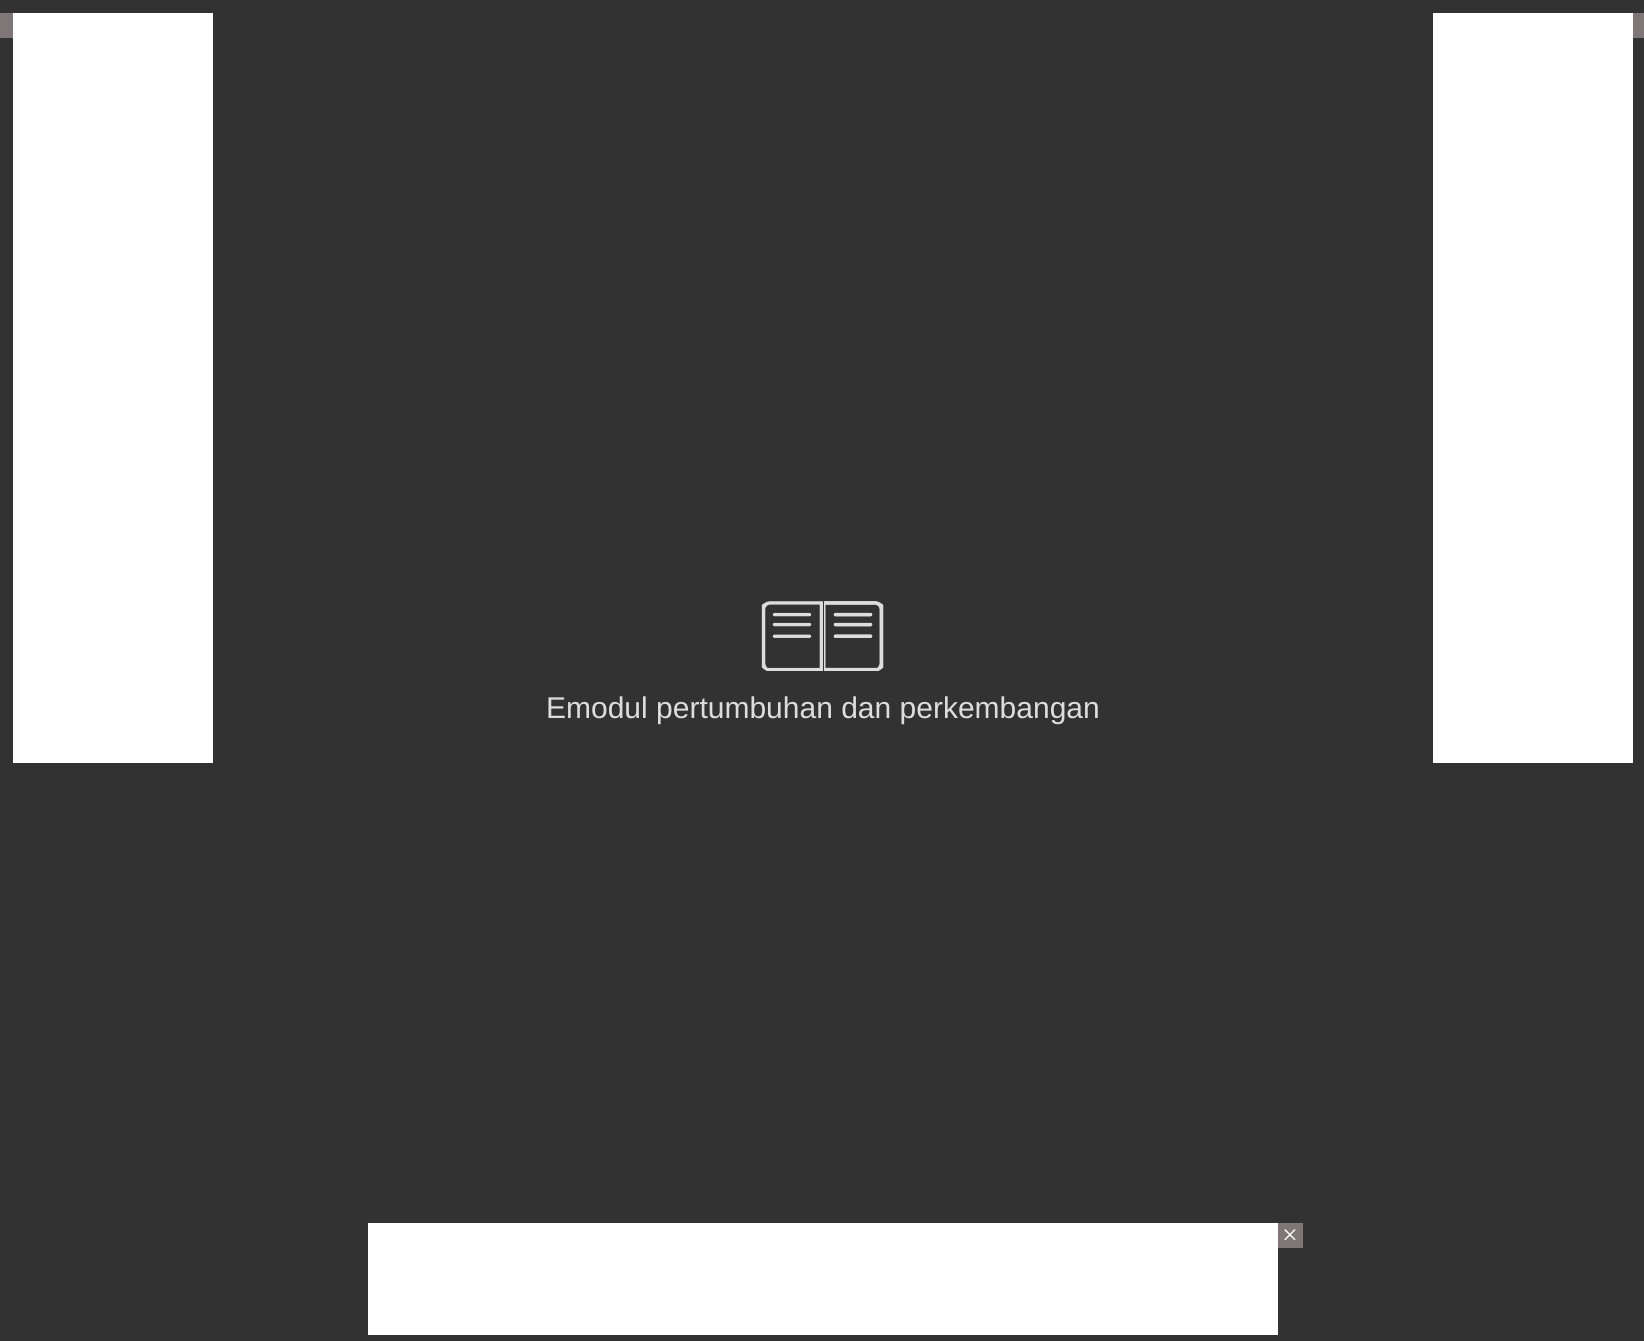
#include <cairo/cairo.h>
#include <math.h>
#include <stddef.h>

static cairo_t *cr;

static void use_color(int r, int g, int b) {
  cairo_set_source_rgb(cr, r / 255.0, g / 255.0, b / 255.0);
}

static void text(double x, double y, const char *s, const char *family, double size, int italic, int bold, int r, int g, int b) {
  cairo_select_font_face(cr, family, italic ? CAIRO_FONT_SLANT_ITALIC : CAIRO_FONT_SLANT_NORMAL,
    bold ? CAIRO_FONT_WEIGHT_BOLD : CAIRO_FONT_WEIGHT_NORMAL);
  cairo_set_font_size(cr, size);
  use_color(r, g, b);
  cairo_move_to(cr, x, y);
  cairo_show_text(cr, s);
}

static void box(double x, double y, double w, double h, int r, int g, int b) {
  use_color(r, g, b);
  cairo_rectangle(cr, x, y, w, h);
  cairo_fill(cr);
}

static void picture(const char *path, double x, double y, double w, double h) {
  cairo_surface_t *image = cairo_image_surface_create_from_png(path);
  cairo_save(cr);
  cairo_set_source_surface(cr, image, x, y);
  cairo_rectangle(cr, x, y, w, h);
  cairo_fill(cr);
  cairo_restore(cr);
  cairo_surface_destroy(image);
}

static void draw(void) {
  use_color(50, 50, 50);
  cairo_paint(cr);
  box(13, 13, 200, 750, 255, 255, 255);
  box(0, 13, 13, 25, 127, 119, 119);
  picture("img_01.png", 761, 601, 62, 70);
  picture("img_02.png", 824, 601, 60, 70);
  picture("img_03.png", 824, 601, 60, 70);
  box(1433, 13, 200, 750, 255, 255, 255);
  box(1633, 13, 11, 25, 127, 119, 119);
  box(368, 1223, 910, 112, 255, 255, 255);
  box(1278, 1223, 25, 25, 127, 119, 119);
  text(546, 718, "Emodul pertumbuhan dan perkembangan", "Liberation Sans", 30, 0, 0, 221, 221, 221);
  text(1282, 1244, "×", "Liberation Serif", 28, 0, 0, 255, 255, 255);
}

int main(void) {
  cairo_surface_t *surface = cairo_image_surface_create(CAIRO_FORMAT_RGB24, 1644, 1341);
  cr = cairo_create(surface);
  cairo_font_options_t *options = cairo_font_options_create();
  cairo_font_options_set_hint_metrics(options, CAIRO_HINT_METRICS_OFF);
  cairo_font_options_set_hint_style(options, CAIRO_HINT_STYLE_NONE);
  cairo_set_font_options(cr, options);
  cairo_set_miter_limit(cr, 4);
  draw();
  cairo_surface_write_to_png(surface, "out.png");
  cairo_font_options_destroy(options);
  cairo_destroy(cr);
  cairo_surface_destroy(surface);
  return 0;
}
